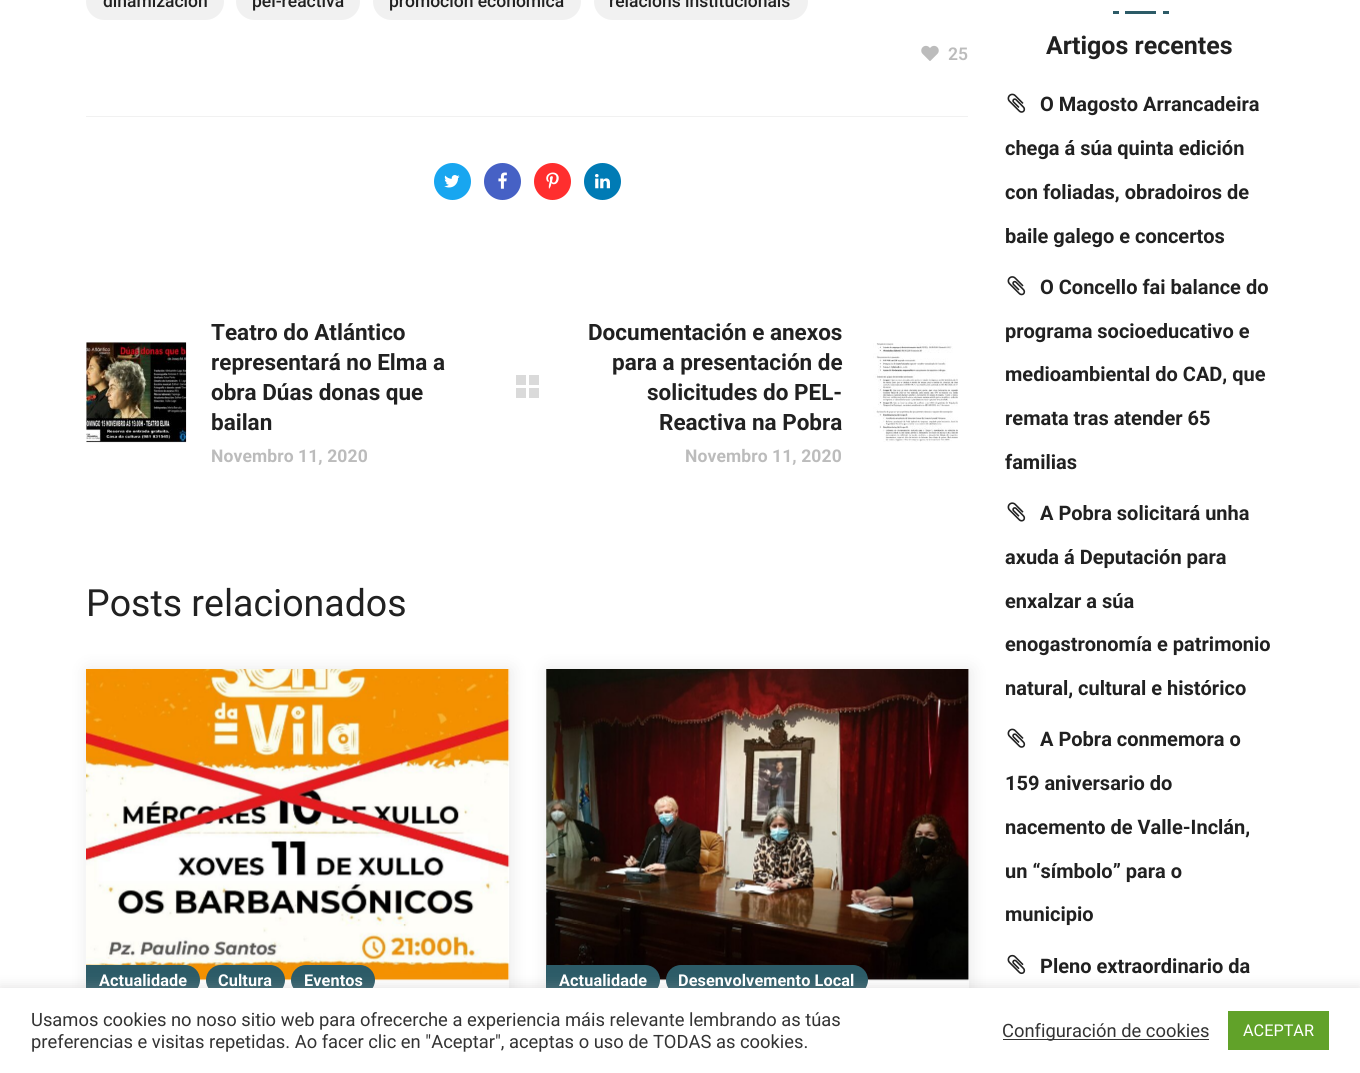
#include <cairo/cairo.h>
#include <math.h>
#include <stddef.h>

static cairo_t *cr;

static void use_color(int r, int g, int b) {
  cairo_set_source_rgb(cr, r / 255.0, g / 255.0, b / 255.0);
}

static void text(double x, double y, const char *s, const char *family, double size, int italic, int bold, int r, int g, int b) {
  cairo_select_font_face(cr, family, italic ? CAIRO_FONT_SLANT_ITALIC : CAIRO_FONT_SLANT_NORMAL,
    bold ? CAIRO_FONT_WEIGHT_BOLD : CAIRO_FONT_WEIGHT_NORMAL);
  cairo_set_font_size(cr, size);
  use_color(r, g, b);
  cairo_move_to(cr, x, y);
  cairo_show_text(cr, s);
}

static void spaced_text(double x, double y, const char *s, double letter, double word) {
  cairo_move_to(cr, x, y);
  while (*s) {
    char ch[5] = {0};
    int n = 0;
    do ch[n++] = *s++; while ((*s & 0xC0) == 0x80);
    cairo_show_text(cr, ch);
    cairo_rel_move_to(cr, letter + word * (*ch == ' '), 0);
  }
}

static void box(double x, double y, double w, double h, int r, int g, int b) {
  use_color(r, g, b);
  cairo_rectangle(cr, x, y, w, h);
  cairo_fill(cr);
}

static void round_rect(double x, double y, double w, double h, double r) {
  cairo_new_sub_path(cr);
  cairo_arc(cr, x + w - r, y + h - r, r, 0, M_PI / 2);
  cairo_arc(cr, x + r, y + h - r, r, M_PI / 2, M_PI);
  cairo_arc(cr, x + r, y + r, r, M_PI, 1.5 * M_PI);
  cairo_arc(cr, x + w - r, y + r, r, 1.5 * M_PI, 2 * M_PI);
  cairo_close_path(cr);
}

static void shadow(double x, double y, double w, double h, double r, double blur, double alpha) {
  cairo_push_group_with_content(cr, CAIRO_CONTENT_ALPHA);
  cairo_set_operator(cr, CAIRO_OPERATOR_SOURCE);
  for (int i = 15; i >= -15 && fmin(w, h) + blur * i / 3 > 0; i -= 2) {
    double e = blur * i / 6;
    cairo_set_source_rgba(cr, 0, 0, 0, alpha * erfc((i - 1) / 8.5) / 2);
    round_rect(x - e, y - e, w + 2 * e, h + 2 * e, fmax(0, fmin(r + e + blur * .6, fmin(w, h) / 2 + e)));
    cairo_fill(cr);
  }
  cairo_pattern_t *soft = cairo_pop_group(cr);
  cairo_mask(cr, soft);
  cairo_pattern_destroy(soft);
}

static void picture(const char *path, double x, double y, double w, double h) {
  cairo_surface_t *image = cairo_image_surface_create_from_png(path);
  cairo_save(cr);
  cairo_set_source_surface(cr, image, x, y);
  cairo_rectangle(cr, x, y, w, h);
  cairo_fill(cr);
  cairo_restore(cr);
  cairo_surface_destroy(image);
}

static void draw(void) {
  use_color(255, 255, 255);
  cairo_paint(cr);
  use_color(241, 241, 241);
  round_rect(86, -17, 138, 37, 18.5);
  cairo_fill(cr);
  round_rect(236, -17, 124, 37, 18.5);
  cairo_fill(cr);
  round_rect(373, -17, 208, 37, 18.5);
  cairo_fill(cr);
  round_rect(594, -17, 214, 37, 18.5);
  cairo_fill(cr);
  picture("img_01.png", 921, 45, 18, 16);
  box(86, 116, 882, 1, 241, 241, 241);
  use_color(24, 166, 240);
  cairo_arc(cr, 452.5, 181.5, 18.5, 0, 2 * M_PI);
  cairo_fill(cr);
  picture("img_02.png", 444, 175, 16, 13);
  use_color(70, 97, 197);
  cairo_arc(cr, 502.5, 181.5, 18.5, 0, 2 * M_PI);
  cairo_fill(cr);
  picture("img_03.png", 498, 172, 9, 17);
  use_color(255, 46, 46);
  cairo_arc(cr, 552.5, 181.5, 18.5, 0, 2 * M_PI);
  cairo_fill(cr);
  picture("img_04.png", 546, 172, 13, 17);
  use_color(0, 123, 181);
  cairo_arc(cr, 602.5, 181.5, 18.5, 0, 2 * M_PI);
  cairo_fill(cr);
  picture("img_05.png", 595, 174, 15, 15);
  picture("img_06.png", 86, 342, 101, 101);
  box(516, 375, 10, 10, 218, 218, 218);
  box(529, 375, 10, 10, 218, 218, 218);
  box(516, 388, 10, 10, 218, 218, 218);
  box(529, 388, 10, 10, 218, 218, 218);
  picture("img_07.png", 873, 343, 85, 99);
  use_color(0, 0, 0);
  shadow(88, 670, 422, 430, 0, 9, 0.1);
  box(197, 669, 312, 319, 255, 255, 255);
  picture("img_08.png", 86, 669, 424, 312);
  use_color(44, 91, 103);
  cairo_new_path(cr);
  cairo_move_to(cr, 86, 965);
  cairo_line_to(cr, 185, 965);
  cairo_curve_to(cr, 193.5, 965, 200, 971.5, 200, 980);
  cairo_curve_to(cr, 200, 988.5, 193.5, 995, 185, 995);
  cairo_line_to(cr, 86, 995);
  cairo_close_path(cr);
  cairo_fill(cr);
  round_rect(206, 965, 79, 30, 15);
  cairo_fill(cr);
  round_rect(291, 965, 84, 30, 15);
  cairo_fill(cr);
  use_color(0, 0, 0);
  shadow(548, 670, 422, 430, 0, 9, 0.1);
  box(546, 669, 423, 319, 255, 255, 255);
  picture("img_09.png", 546, 669, 423, 312);
  use_color(44, 91, 103);
  cairo_new_path(cr);
  cairo_move_to(cr, 546, 965);
  cairo_line_to(cr, 645, 965);
  cairo_curve_to(cr, 653.5, 965, 660, 971.5, 660, 980);
  cairo_curve_to(cr, 660, 988.5, 653.5, 995, 645, 995);
  cairo_line_to(cr, 546, 995);
  cairo_close_path(cr);
  cairo_fill(cr);
  round_rect(666, 965, 202, 30, 15);
  cairo_fill(cr);
  box(1163, 11, 6, 3, 44, 91, 103);
  box(1125, 11, 31, 3, 44, 91, 103);
  box(1113, 11, 6, 3, 44, 91, 103);
  picture("img_10.png", 1007, 93, 19, 20);
  picture("img_11.png", 1007, 276, 19, 20);
  picture("img_12.png", 1007, 502, 19, 20);
  picture("img_10.png", 1007, 728, 19, 20);
  picture("img_13.png", 1007, 954, 19, 21);
  use_color(172, 171, 171);
  shadow(0, 986, 1360, 87, 0, 6, 0.3);
  box(0, 988, 1360, 85, 255, 255, 255);
  box(1003, 1039, 206, 1, 51, 51, 51);
  box(1228, 1011, 101, 39, 97, 162, 41);
  text(103, 7, "dinamización", "Roboto Medium", 17.5, 0, 0, 33, 33, 33);
  text(252, 7, "pel-reactiva", "Roboto Medium", 17.5, 0, 0, 33, 33, 33);
  text(389, 7, "promoción económica", "Roboto Medium", 17.5, 0, 0, 33, 33, 33);
  text(609, 7, "relacións institucionais", "Roboto Medium", 17.5, 0, 0, 33, 33, 33);
  text(948, 60, "25", "Roboto SemiBold", 17.5, 0, 0, 188, 188, 188);
  text(211, 340, "Teatro do Atlántico", "Roboto", 22.5, 0, 1, 33, 33, 33);
  text(211, 370, "representará no Elma a", "Roboto", 22.5, 0, 1, 33, 33, 33);
  text(211, 400, "obra Dúas donas que", "Roboto", 22.5, 0, 1, 33, 33, 33);
  text(211, 430, "bailan", "Roboto", 22.5, 0, 1, 33, 33, 33);
  cairo_set_font_size(cr, 17.5);
  use_color(188, 188, 188);
  spaced_text(211, 462, "Novembro 11, 2020", 0.1, 0);
  text(588, 340, "Documentación e anexos", "Roboto", 22.5, 0, 1, 33, 33, 33);
  text(612, 370, "para a presentación de", "Roboto", 22.5, 0, 1, 33, 33, 33);
  text(647, 400, "solicitudes do PEL-", "Roboto", 22.5, 0, 1, 33, 33, 33);
  text(659, 430, "Reactiva na Pobra", "Roboto", 22.5, 0, 1, 33, 33, 33);
  cairo_set_font_size(cr, 17.5);
  use_color(188, 188, 188);
  spaced_text(685, 462, "Novembro 11, 2020", 0.1, 0);
  text(86, 616, "Posts relacionados", "Roboto", 37.5, 0, 0, 33, 33, 33);
  cairo_select_font_face(cr, "Roboto", CAIRO_FONT_SLANT_NORMAL, CAIRO_FONT_WEIGHT_BOLD);
  cairo_set_font_size(cr, 16.25);
  use_color(255, 255, 255);
  spaced_text(99, 986, "Actualidade", 0.1, 0);
  spaced_text(218, 986, "Cultura", 0.1, 0);
  spaced_text(304, 986, "Eventos", 0.1, 0);
  spaced_text(559, 986, "Actualidade", 0.1, 0);
  spaced_text(678, 986, "Desenvolvemento Local", 0.1, 0);
  text(1046, 54, "Artigos recentes", "Roboto", 25, 0, 1, 33, 33, 33);
  text(1040, 111, "O Magosto Arrancadeira", "Roboto", 20, 0, 1, 33, 33, 33);
  text(1005, 155, "chega á súa quinta edición", "Roboto", 20, 0, 1, 33, 33, 33);
  text(1005, 199, "con foliadas, obradoiros de", "Roboto", 20, 0, 1, 33, 33, 33);
  text(1005, 243, "baile galego e concertos", "Roboto", 20, 0, 1, 33, 33, 33);
  text(1040, 294, "O Concello fai balance do", "Roboto", 20, 0, 1, 33, 33, 33);
  text(1005, 338, "programa socioeducativo e", "Roboto", 20, 0, 1, 33, 33, 33);
  text(1005, 381, "medioambiental do CAD, que", "Roboto", 20, 0, 1, 33, 33, 33);
  text(1005, 425, "remata tras atender 65", "Roboto", 20, 0, 1, 33, 33, 33);
  text(1005, 469, "familias", "Roboto", 20, 0, 1, 33, 33, 33);
  text(1040, 520, "A Pobra solicitará unha", "Roboto", 20, 0, 1, 33, 33, 33);
  text(1005, 564, "axuda á Deputación para", "Roboto", 20, 0, 1, 33, 33, 33);
  text(1005, 608, "enxalzar a súa", "Roboto", 20, 0, 1, 33, 33, 33);
  text(1005, 651, "enogastronomía e patrimonio", "Roboto", 20, 0, 1, 33, 33, 33);
  text(1005, 695, "natural, cultural e histórico", "Roboto", 20, 0, 1, 33, 33, 33);
  text(1040, 746, "A Pobra conmemora o", "Roboto", 20, 0, 1, 33, 33, 33);
  text(1005, 790, "159 aniversario do", "Roboto", 20, 0, 1, 33, 33, 33);
  text(1005, 834, "nacemento de Valle-Inclán,", "Roboto", 20, 0, 1, 33, 33, 33);
  text(1005, 878, "un “símbolo” para o", "Roboto", 20, 0, 1, 33, 33, 33);
  text(1005, 921, "municipio", "Roboto", 20, 0, 1, 33, 33, 33);
  text(1040, 973, "Pleno extraordinario da", "Roboto", 20, 0, 1, 33, 33, 33);
  text(31, 1026, "Usamos cookies no noso sitio web para ofrecerche a experiencia máis relevante lembrando as túas", "Roboto", 18.35, 0, 0, 51, 51, 51);
  text(31, 1048, "preferencias e visitas repetidas. Ao facer clic en \"Aceptar\", aceptas o uso de TODAS as cookies.", "Roboto", 18.35, 0, 0, 51, 51, 51);
  text(1002, 1037, "Configuración de cookies", "Roboto", 18.35, 0, 0, 51, 51, 51);
  text(1243, 1036, "ACEPTAR", "Roboto", 16.25, 0, 0, 255, 255, 255);
}

int main(void) {
  cairo_surface_t *surface = cairo_image_surface_create(CAIRO_FORMAT_RGB24, 1360, 1073);
  cr = cairo_create(surface);
  cairo_font_options_t *options = cairo_font_options_create();
  cairo_font_options_set_hint_metrics(options, CAIRO_HINT_METRICS_OFF);
  cairo_font_options_set_hint_style(options, CAIRO_HINT_STYLE_NONE);
  cairo_set_font_options(cr, options);
  cairo_set_miter_limit(cr, 4);
  draw();
  cairo_surface_write_to_png(surface, "out.png");
  cairo_font_options_destroy(options);
  cairo_destroy(cr);
  cairo_surface_destroy(surface);
  return 0;
}
